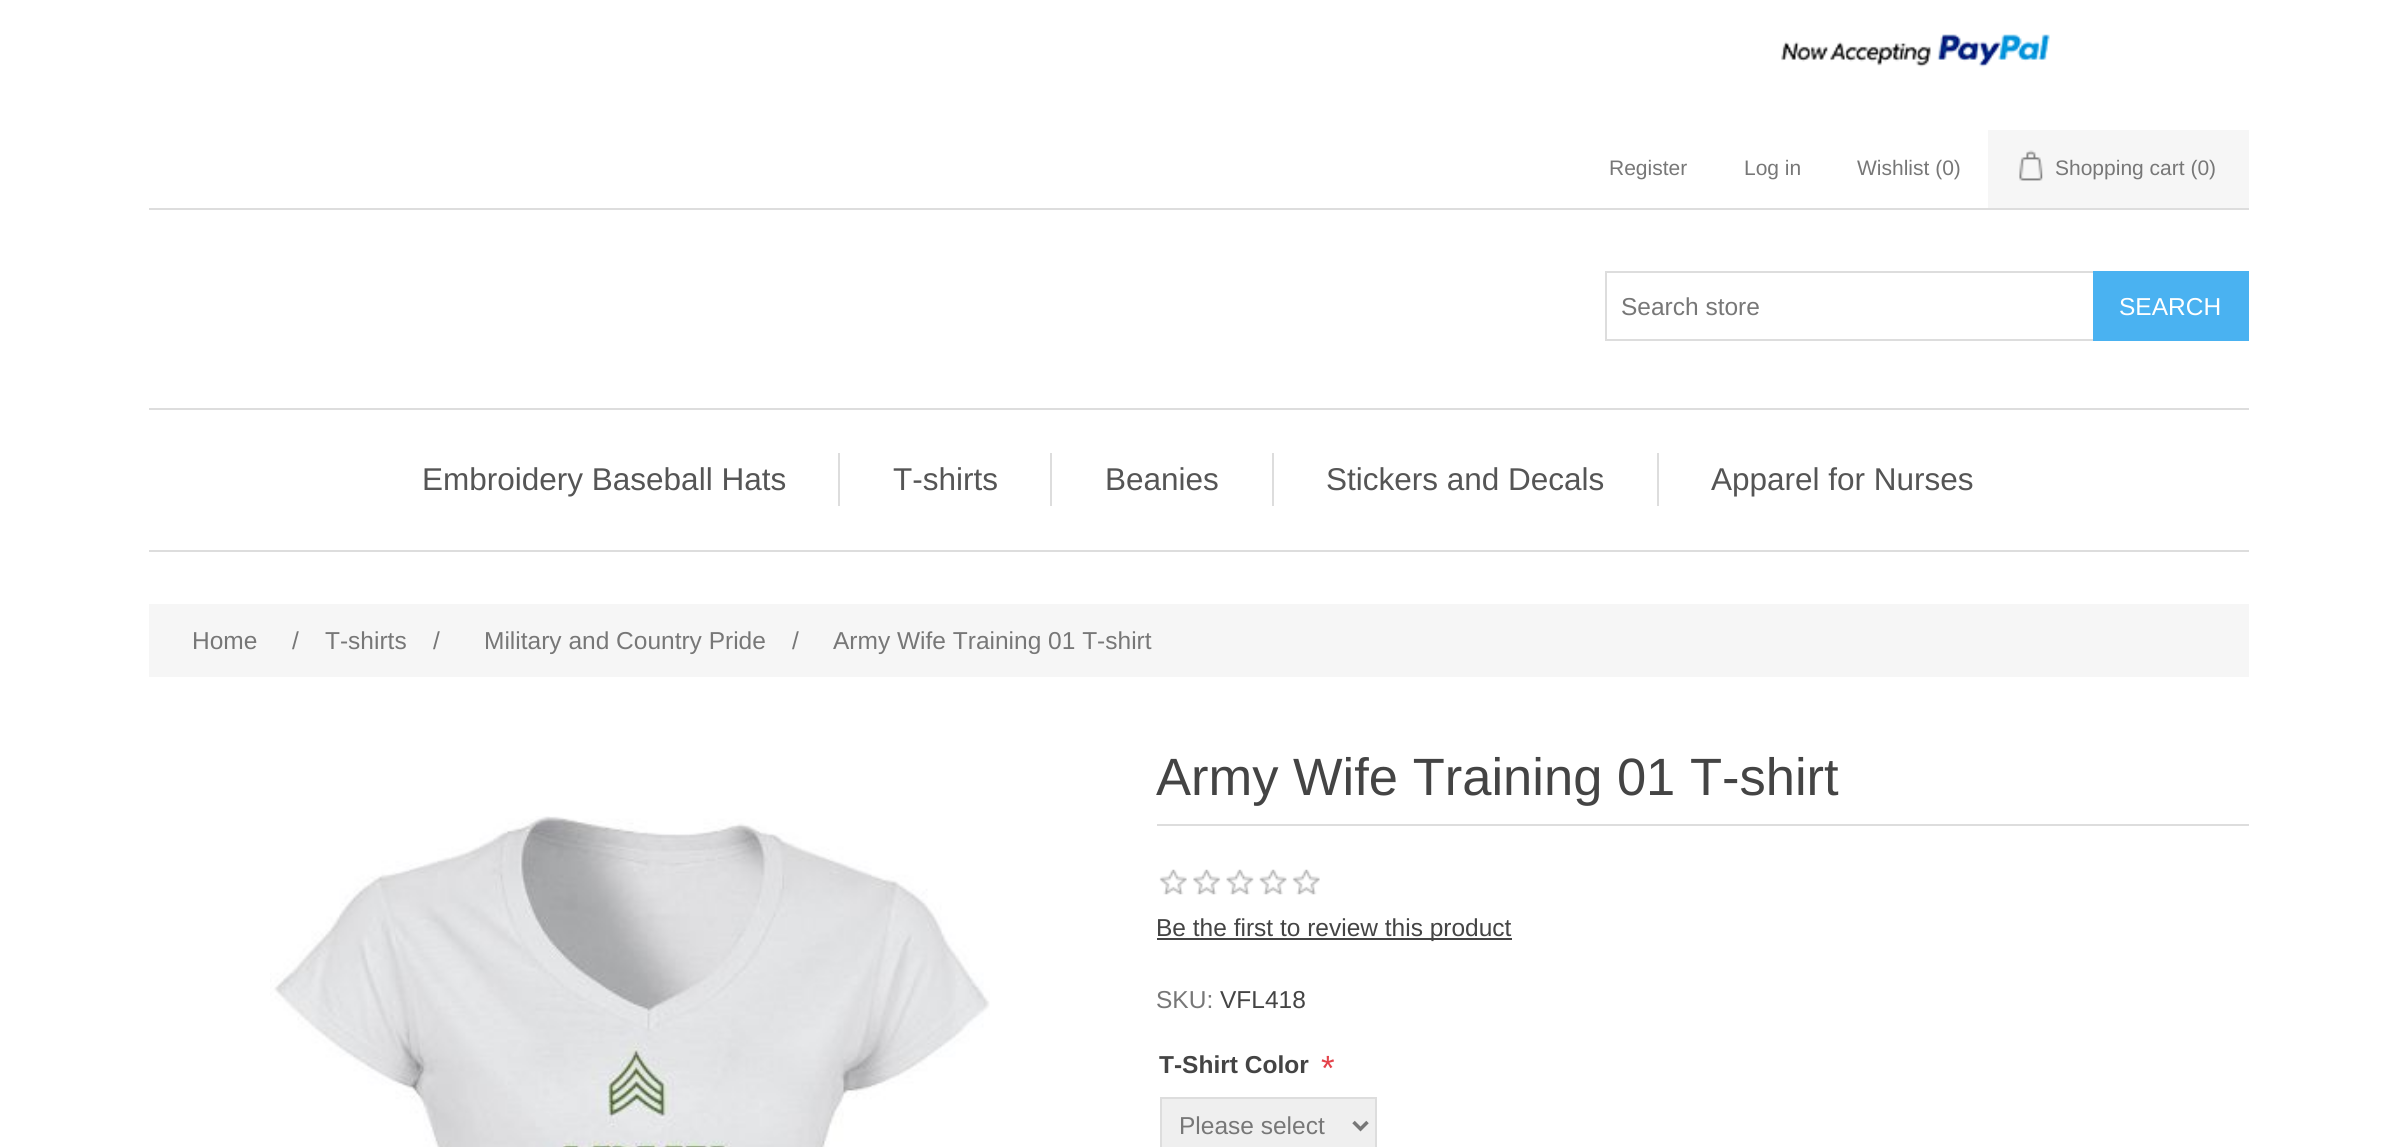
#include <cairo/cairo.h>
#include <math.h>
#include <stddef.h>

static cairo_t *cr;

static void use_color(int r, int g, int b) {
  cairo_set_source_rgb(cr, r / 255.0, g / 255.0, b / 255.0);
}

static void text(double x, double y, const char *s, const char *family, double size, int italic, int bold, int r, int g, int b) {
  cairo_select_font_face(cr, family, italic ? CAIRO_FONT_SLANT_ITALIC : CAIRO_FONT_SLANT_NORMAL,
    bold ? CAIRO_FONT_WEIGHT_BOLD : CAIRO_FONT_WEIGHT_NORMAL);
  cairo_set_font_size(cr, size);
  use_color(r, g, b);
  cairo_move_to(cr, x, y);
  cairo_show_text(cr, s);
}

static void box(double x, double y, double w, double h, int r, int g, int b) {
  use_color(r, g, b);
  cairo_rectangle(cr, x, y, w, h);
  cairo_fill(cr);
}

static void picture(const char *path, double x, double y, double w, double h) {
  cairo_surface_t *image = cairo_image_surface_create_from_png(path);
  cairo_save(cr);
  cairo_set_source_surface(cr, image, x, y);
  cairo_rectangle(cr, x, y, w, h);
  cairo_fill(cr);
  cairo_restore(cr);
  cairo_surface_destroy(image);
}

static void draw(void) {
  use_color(255, 255, 255);
  cairo_paint(cr);
  box(149, 208, 2100, 2, 221, 221, 221);
  picture("img_01.png", 1781, 34, 269, 33);
  box(1988, 130, 261, 78, 246, 246, 246);
  picture("img_02.png", 2019, 150, 24, 31);
  cairo_rectangle(cr, 1606, 272, 488, 68);
  use_color(221, 221, 221);
  cairo_stroke(cr);
  box(2093, 271, 156, 70, 74, 178, 241);
  box(149, 408, 2100, 2, 221, 221, 221);
  box(149, 550, 2100, 2, 221, 221, 221);
  box(838, 453, 2, 53, 221, 221, 221);
  box(1050, 453, 2, 53, 221, 221, 221);
  box(1272, 453, 2, 53, 221, 221, 221);
  box(1657, 453, 2, 53, 221, 221, 221);
  box(149, 604, 2100, 73, 246, 246, 246);
  picture("img_03.png", 270, 816, 720, 331);
  box(1157, 824, 1092, 2, 221, 221, 221);
  picture("img_04.png", 1159, 869, 161, 26);
  box(1157, 938, 355, 2, 68, 68, 68);
  use_color(239, 239, 239);
  cairo_rectangle(cr, 1161, 1098, 215, 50);
  cairo_fill_preserve(cr);
  use_color(221, 221, 221);
  cairo_stroke(cr);
  cairo_new_path(cr);
  cairo_move_to(cr, 1353.5, 1122);
  cairo_line_to(cr, 1360.5, 1129);
  cairo_line_to(cr, 1367.5, 1122);
  use_color(119, 119, 119);
  cairo_set_line_width(cr, 3.5);
  cairo_stroke(cr);
  text(1609, 175, "Register", "Liberation Sans", 21, 0, 0, 119, 119, 119);
  text(1744, 175, "Log in", "Liberation Sans", 21, 0, 0, 119, 119, 119);
  text(1857, 175, "Wishlist (0)", "Liberation Sans", 21, 0, 0, 119, 119, 119);
  text(2055, 175, "Shopping cart (0)", "Liberation Sans", 21, 0, 0, 119, 119, 119);
  text(1621, 315, "Search store", "Liberation Sans", 24.5, 0, 0, 119, 119, 119);
  text(2119, 315, "SEARCH", "Liberation Sans", 24.5, 0, 0, 255, 255, 255);
  text(422, 490, "Embroidery Baseball Hats", "Liberation Sans", 31.5, 0, 0, 85, 85, 85);
  text(893, 490, "T-shirts", "Liberation Sans", 31.5, 0, 0, 85, 85, 85);
  text(1105, 490, "Beanies", "Liberation Sans", 31.5, 0, 0, 85, 85, 85);
  text(1326, 490, "Stickers and Decals", "Liberation Sans", 31.5, 0, 0, 85, 85, 85);
  text(1711, 490, "Apparel for Nurses", "Liberation Sans", 31.5, 0, 0, 85, 85, 85);
  text(192, 649, "Home", "Liberation Sans", 24.5, 0, 0, 119, 119, 119);
  text(292, 649, "/", "Liberation Sans", 24.5, 0, 0, 119, 119, 119);
  text(325, 649, "T-shirts", "Liberation Sans", 24.5, 0, 0, 119, 119, 119);
  text(433, 649, "/", "Liberation Sans", 24.5, 0, 0, 119, 119, 119);
  text(484, 649, "Military and Country Pride", "Liberation Sans", 24.5, 0, 0, 119, 119, 119);
  text(792, 649, "/", "Liberation Sans", 24.5, 0, 0, 119, 119, 119);
  text(833, 649, "Army Wife Training 01 T-shirt", "Liberation Sans", 24.5, 0, 0, 119, 119, 119);
  text(1156, 795, "Army Wife Training 01 T-shirt", "Liberation Sans", 52.5, 0, 0, 68, 68, 68);
  text(1156, 936, "Be the first to review this product", "Liberation Sans", 24.5, 0, 0, 68, 68, 68);
  text(1156, 1008, "SKU:", "Liberation Sans", 24.5, 0, 0, 119, 119, 119);
  text(1220, 1008, "VFL418", "Liberation Sans", 24.5, 0, 0, 68, 68, 68);
  text(1159, 1073, "T-Shirt Color", "Liberation Sans", 24.5, 0, 1, 68, 68, 68);
  text(1321, 1080, "*", "Liberation Sans", 35, 0, 0, 228, 67, 75);
  text(1179, 1134, "Please select", "Liberation Sans", 24.5, 0, 0, 119, 119, 119);
}

int main(void) {
  cairo_surface_t *surface = cairo_image_surface_create(CAIRO_FORMAT_RGB24, 2395, 1147);
  cr = cairo_create(surface);
  cairo_font_options_t *options = cairo_font_options_create();
  cairo_font_options_set_hint_metrics(options, CAIRO_HINT_METRICS_OFF);
  cairo_font_options_set_hint_style(options, CAIRO_HINT_STYLE_NONE);
  cairo_set_font_options(cr, options);
  cairo_set_miter_limit(cr, 4);
  draw();
  cairo_surface_write_to_png(surface, "out.png");
  cairo_font_options_destroy(options);
  cairo_destroy(cr);
  cairo_surface_destroy(surface);
  return 0;
}
